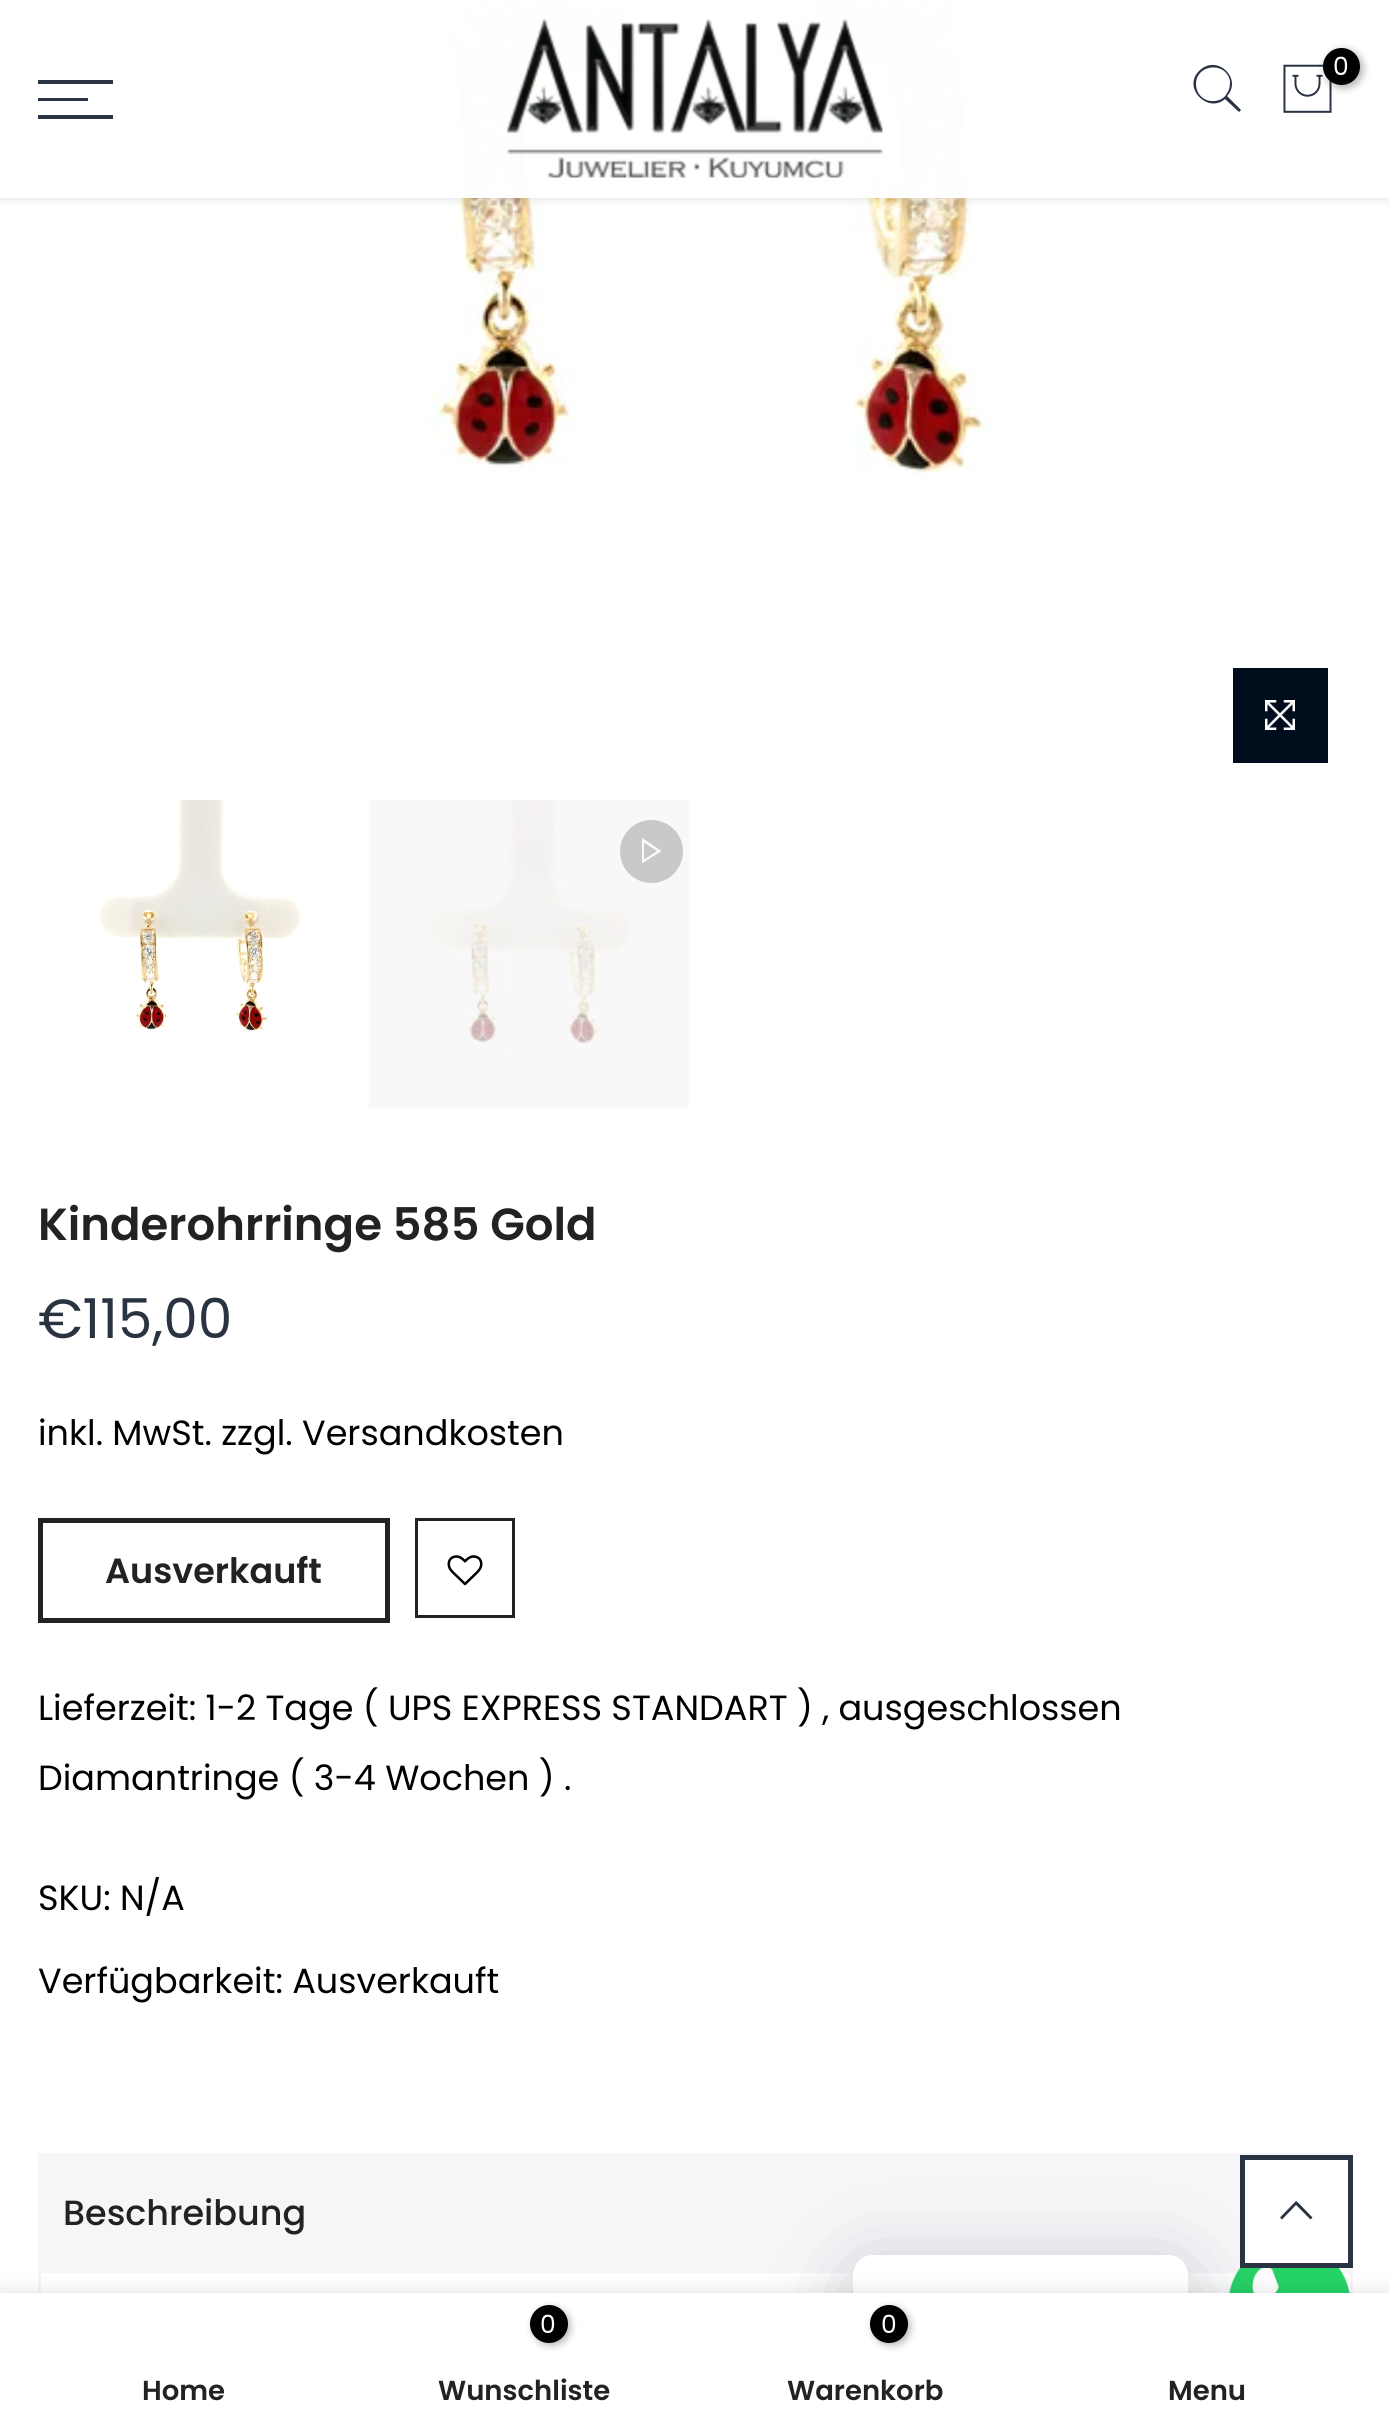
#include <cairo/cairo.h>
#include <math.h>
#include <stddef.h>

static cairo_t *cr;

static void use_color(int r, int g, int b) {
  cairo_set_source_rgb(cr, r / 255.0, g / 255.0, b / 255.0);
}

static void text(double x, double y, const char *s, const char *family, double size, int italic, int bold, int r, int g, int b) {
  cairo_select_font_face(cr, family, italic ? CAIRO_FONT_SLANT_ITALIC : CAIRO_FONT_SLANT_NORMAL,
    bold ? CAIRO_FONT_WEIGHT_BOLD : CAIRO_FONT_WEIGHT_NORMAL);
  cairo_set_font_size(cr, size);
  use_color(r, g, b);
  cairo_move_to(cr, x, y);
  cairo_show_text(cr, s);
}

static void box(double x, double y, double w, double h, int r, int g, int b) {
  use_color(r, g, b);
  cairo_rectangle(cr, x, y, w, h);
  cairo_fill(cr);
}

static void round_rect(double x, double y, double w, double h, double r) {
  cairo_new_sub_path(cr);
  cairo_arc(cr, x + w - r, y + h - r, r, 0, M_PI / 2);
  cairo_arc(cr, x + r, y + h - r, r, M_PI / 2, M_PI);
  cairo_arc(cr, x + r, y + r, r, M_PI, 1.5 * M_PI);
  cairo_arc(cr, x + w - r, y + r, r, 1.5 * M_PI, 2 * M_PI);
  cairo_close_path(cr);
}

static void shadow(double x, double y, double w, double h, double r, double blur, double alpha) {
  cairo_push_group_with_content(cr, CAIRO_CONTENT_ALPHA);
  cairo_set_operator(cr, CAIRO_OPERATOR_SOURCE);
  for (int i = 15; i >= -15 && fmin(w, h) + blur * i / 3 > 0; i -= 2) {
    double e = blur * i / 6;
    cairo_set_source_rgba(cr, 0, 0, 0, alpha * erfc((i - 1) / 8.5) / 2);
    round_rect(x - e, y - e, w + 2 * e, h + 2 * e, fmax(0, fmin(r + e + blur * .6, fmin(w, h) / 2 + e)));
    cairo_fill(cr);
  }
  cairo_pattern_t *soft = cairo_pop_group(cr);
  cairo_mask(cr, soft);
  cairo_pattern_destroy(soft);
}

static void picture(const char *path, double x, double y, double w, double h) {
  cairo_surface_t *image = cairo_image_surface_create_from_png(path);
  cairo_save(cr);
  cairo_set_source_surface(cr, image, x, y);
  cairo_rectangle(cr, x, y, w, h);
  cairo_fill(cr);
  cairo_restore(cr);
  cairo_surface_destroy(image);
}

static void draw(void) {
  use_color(255, 255, 255);
  cairo_paint(cr);
  picture("img_03.png", 285, 0, 841, 476);
  cairo_save(cr);
  cairo_set_fill_rule(cr, CAIRO_FILL_RULE_EVEN_ODD);
  cairo_new_path(cr);
  cairo_move_to(cr, 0, 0);
  cairo_line_to(cr, 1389, 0);
  cairo_line_to(cr, 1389, 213);
  cairo_line_to(cr, 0, 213);
  cairo_close_path(cr);
  cairo_move_to(cr, 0, 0);
  cairo_line_to(cr, 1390, 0);
  cairo_line_to(cr, 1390, 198);
  cairo_line_to(cr, 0, 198);
  cairo_close_path(cr);
  cairo_clip(cr);
  use_color(0, 0, 0);
  shadow(0, 3, 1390, 197, 0, 4, 0.1);
  cairo_restore(cr);
  cairo_set_source_rgba(cr, 1, 1, 1, 0.98);
  cairo_rectangle(cr, 0, 0, 1389, 198);
  cairo_fill(cr);
  picture("img_01.png", 507, 19, 376, 159);
  use_color(41, 51, 65);
  cairo_new_path(cr);
  cairo_move_to(cr, 1241, 110);
  cairo_line_to(cr, 1227, 96);
  cairo_curve_to(cr, 1243, 79, 1217, 53, 1199, 71);
  cairo_curve_to(cr, 1182, 88, 1208, 114, 1225, 99);
  cairo_line_to(cr, 1239, 112);
  cairo_close_path(cr);
  cairo_move_to(cr, 1196, 84);
  cairo_curve_to(cr, 1196, 64, 1226, 61, 1230, 81);
  cairo_curve_to(cr, 1230, 85, 1230, 89, 1227, 93);
  cairo_curve_to(cr, 1225, 98, 1219, 101, 1214, 101);
  cairo_curve_to(cr, 1204, 102, 1196, 94, 1196, 84);
  cairo_close_path(cr);
  cairo_fill(cr);
  picture("img_02.png", 1283, 64, 49, 49);
  use_color(0, 0, 0);
  shadow(1325, 50, 38, 38, 19, 4, 0.3);
  use_color(0, 0, 0);
  cairo_arc(cr, 1341.5, 66.5, 18.5, 0, 2 * M_PI);
  cairo_fill(cr);
  box(38, 80, 75, 4, 41, 51, 65);
  box(38, 98, 50, 3, 41, 51, 65);
  box(38, 115, 75, 4, 41, 51, 65);
  box(1233, 668, 95, 95, 0, 13, 29);
  picture("img_04.png", 1265, 700, 30, 30);
  picture("img_05.png", 98, 800, 204, 232);
  picture("img_06.png", 369, 800, 320, 308);
  use_color(202, 201, 201);
  cairo_arc(cr, 651.5, 851.5, 31.5, 0, 2 * M_PI);
  cairo_fill(cr);
  use_color(251, 250, 250);
  cairo_new_path(cr);
  cairo_move_to(cr, 642, 838);
  cairo_line_to(cr, 642, 863.5);
  cairo_line_to(cr, 661.5, 851);
  cairo_close_path(cr);
  cairo_move_to(cr, 644, 842.5);
  cairo_line_to(cr, 657, 851);
  cairo_line_to(cr, 644, 859.5);
  cairo_close_path(cr);
  cairo_fill(cr);
  cairo_rectangle(cr, 40.5, 1520.5, 347, 100);
  use_color(34, 34, 34);
  cairo_set_line_width(cr, 5);
  cairo_stroke(cr);
  cairo_rectangle(cr, 416.5, 1519.5, 97, 97);
  cairo_set_line_width(cr, 3);
  cairo_stroke(cr);
  picture("img_07.png", 447, 1555, 36, 31);
  cairo_new_path(cr);
  cairo_move_to(cr, 450, 1585);
  cairo_curve_to(cr, 442, 1577, 442, 1563, 450, 1555);
  use_color(255, 255, 255);
  cairo_set_line_width(cr, 2.5);
  cairo_stroke(cr);
  box(38, 2153, 1315, 120, 246, 246, 248);
  box(1350, 2273, 3, 20, 245, 245, 245);
  box(38, 2273, 3, 20, 245, 245, 245);
  picture("img_08.png", 1229, 2267, 121, 26);
  use_color(0, 18, 46);
  shadow(853, 2270, 335, 98, 20, 40, 0.24);
  use_color(255, 255, 255);
  round_rect(853, 2255, 335, 98, 20);
  cairo_fill(cr);
  cairo_rectangle(cr, 1242.5, 2157.5, 108, 108);
  cairo_fill_preserve(cr);
  use_color(41, 51, 65);
  cairo_set_line_width(cr, 5);
  cairo_stroke(cr);
  cairo_new_path(cr);
  cairo_move_to(cr, 1298.5, 2203);
  cairo_line_to(cr, 1296, 2201);
  cairo_line_to(cr, 1280, 2217.5);
  cairo_line_to(cr, 1282, 2219.5);
  cairo_line_to(cr, 1296, 2205);
  cairo_line_to(cr, 1310.5, 2219.5);
  cairo_line_to(cr, 1312.5, 2217.5);
  cairo_close_path(cr);
  cairo_fill(cr);
  use_color(0, 0, 0);
  shadow(0, 2293, 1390, 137, 0, 11, 0.12);
  box(0, 2293, 1389, 136, 255, 255, 255);
  use_color(0, 0, 0);
  shadow(533, 2308, 37, 37, 18.5, 4, 0.3);
  use_color(0, 0, 0);
  cairo_arc(cr, 549, 2324, 19, 0, 2 * M_PI);
  cairo_fill(cr);
  use_color(0, 0, 0);
  shadow(873, 2308, 37, 37, 18.5, 4, 0.3);
  use_color(0, 0, 0);
  cairo_arc(cr, 889, 2324, 19, 0, 2 * M_PI);
  cairo_fill(cr);
  text(1333, 75, "0", "Poppins", 25, 0, 0, 255, 255, 255);
  text(38, 1240, "Kinderohrringe 585 Gold", "Poppins SemiBold", 45, 0, 0, 34, 34, 34);
  text(38, 1338, "€115,00", "Poppins", 55, 0, 0, 41, 51, 65);
  text(38, 1445, "inkl. MwSt. zzgl. Versandkosten", "Poppins", 35, 0, 0, 0, 0, 0);
  text(105, 1583, "Ausverkauft", "Poppins SemiBold", 35, 0, 0, 34, 34, 34);
  text(38, 1720, "Lieferzeit: 1-2 Tage ( UPS EXPRESS STANDART ) , ausgeschlossen", "Poppins", 35, 0, 0, 0, 0, 0);
  text(38, 1790, "Diamantringe ( 3-4 Wochen ) .", "Poppins", 35, 0, 0, 0, 0, 0);
  text(38, 1910, "SKU: N/A", "Poppins", 35, 0, 0, 0, 0, 0);
  text(38, 1993, "Verfügbarkeit: Ausverkauft", "Poppins", 35, 0, 0, 0, 0, 0);
  text(63, 2225, "Beschreibung", "Poppins Medium", 35, 0, 0, 34, 34, 34);
  text(142, 2400, "Home", "Poppins SemiBold", 27.5, 0, 0, 34, 34, 34);
  text(540, 2333, "0", "Poppins", 25, 0, 0, 255, 255, 255);
  text(438, 2400, "Wunschliste", "Poppins SemiBold", 27.5, 0, 0, 34, 34, 34);
  text(881, 2333, "0", "Poppins", 25, 0, 0, 255, 255, 255);
  text(787, 2400, "Warenkorb", "Poppins SemiBold", 27.5, 0, 0, 34, 34, 34);
  text(1168, 2400, "Menu", "Poppins SemiBold", 27.5, 0, 0, 34, 34, 34);
}

int main(void) {
  cairo_surface_t *surface = cairo_image_surface_create(CAIRO_FORMAT_RGB24, 1389, 2429);
  cr = cairo_create(surface);
  cairo_font_options_t *options = cairo_font_options_create();
  cairo_font_options_set_hint_metrics(options, CAIRO_HINT_METRICS_OFF);
  cairo_font_options_set_hint_style(options, CAIRO_HINT_STYLE_NONE);
  cairo_set_font_options(cr, options);
  cairo_set_miter_limit(cr, 4);
  draw();
  cairo_surface_write_to_png(surface, "out.png");
  cairo_font_options_destroy(options);
  cairo_destroy(cr);
  cairo_surface_destroy(surface);
  return 0;
}
